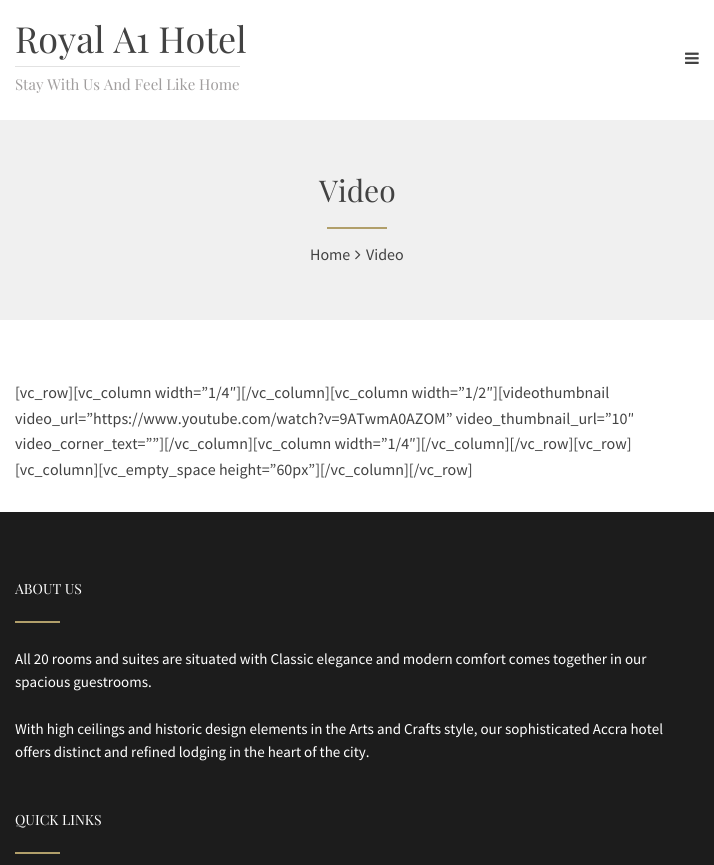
#include <cairo/cairo.h>
#include <math.h>
#include <stddef.h>

static cairo_t *cr;

static void use_color(int r, int g, int b) {
  cairo_set_source_rgb(cr, r / 255.0, g / 255.0, b / 255.0);
}

static void text(double x, double y, const char *s, const char *family, double size, int italic, int bold, int r, int g, int b) {
  cairo_select_font_face(cr, family, italic ? CAIRO_FONT_SLANT_ITALIC : CAIRO_FONT_SLANT_NORMAL,
    bold ? CAIRO_FONT_WEIGHT_BOLD : CAIRO_FONT_WEIGHT_NORMAL);
  cairo_set_font_size(cr, size);
  use_color(r, g, b);
  cairo_move_to(cr, x, y);
  cairo_show_text(cr, s);
}

static void box(double x, double y, double w, double h, int r, int g, int b) {
  use_color(r, g, b);
  cairo_rectangle(cr, x, y, w, h);
  cairo_fill(cr);
}

static void picture(const char *path, double x, double y, double w, double h) {
  cairo_surface_t *image = cairo_image_surface_create_from_png(path);
  cairo_save(cr);
  cairo_set_source_surface(cr, image, x, y);
  cairo_rectangle(cr, x, y, w, h);
  cairo_fill(cr);
  cairo_restore(cr);
  cairo_surface_destroy(image);
}

static void draw(void) {
  use_color(255, 255, 255);
  cairo_paint(cr);
  box(15, 66, 225, 1, 226, 226, 226);
  picture("img_01.png", 685, 52, 14, 12);
  box(0, 120, 714, 200, 240, 240, 240);
  box(327, 227, 60, 2, 177, 159, 106);
  picture("img_02.png", 355, 250, 6, 10);
  box(0, 512, 714, 353, 28, 28, 28);
  box(15, 621, 45, 2, 177, 159, 106);
  box(15, 852, 45, 2, 177, 159, 106);
  text(15, 53, "Royal A1 Hotel", "Playfair Display", 36, 0, 0, 66, 66, 66);
  text(15, 90, "Stay With Us And Feel Like Home", "Playfair Display", 15, 0, 0, 160, 157, 157);
  text(319, 202, "Video", "Playfair Display", 30, 0, 0, 66, 66, 66);
  text(310, 260, "Home", "Source Sans Pro", 16, 0, 0, 66, 66, 66);
  text(366, 260, "Video", "Source Sans Pro", 16, 0, 0, 66, 66, 66);
  text(15, 398, "[vc_row][vc_column width=”1/4″][/vc_column][vc_column width=”1/2″][videothumbnail", "Source Sans Pro", 16, 0, 0, 66, 66, 66);
  text(15, 424, "video_url=”https://www.youtube.com/watch?v=9ATwmA0AZOM” video_thumbnail_url=”10″", "Source Sans Pro", 16, 0, 0, 66, 66, 66);
  text(15, 449, "video_corner_text=””][/vc_column][vc_column width=”1/4″][/vc_column][/vc_row][vc_row]", "Source Sans Pro", 16, 0, 0, 66, 66, 66);
  text(15, 475, "[vc_column][vc_empty_space height=”60px”][/vc_column][/vc_row]", "Source Sans Pro", 16, 0, 0, 66, 66, 66);
  text(15, 594, "ABOUT US", "Playfair Display", 14, 0, 0, 255, 255, 255);
  text(15, 664, "All 20 rooms and suites are situated with Classic elegance and modern comfort comes together in our", "Source Sans Pro", 15, 0, 0, 255, 255, 255);
  text(15, 687, "spacious guestrooms.", "Source Sans Pro", 15, 0, 0, 255, 255, 255);
  text(15, 734, "With high ceilings and historic design elements in the Arts and Crafts style, our sophisticated Accra hotel", "Source Sans Pro", 15, 0, 0, 255, 255, 255);
  text(15, 757, "offers distinct and refined lodging in the heart of the city.", "Source Sans Pro", 15, 0, 0, 255, 255, 255);
  text(15, 825, "QUICK LINKS", "Playfair Display", 14, 0, 0, 255, 255, 255);
}

int main(void) {
  cairo_surface_t *surface = cairo_image_surface_create(CAIRO_FORMAT_RGB24, 714, 865);
  cr = cairo_create(surface);
  cairo_font_options_t *options = cairo_font_options_create();
  cairo_font_options_set_hint_metrics(options, CAIRO_HINT_METRICS_OFF);
  cairo_font_options_set_hint_style(options, CAIRO_HINT_STYLE_NONE);
  cairo_set_font_options(cr, options);
  cairo_set_miter_limit(cr, 4);
  draw();
  cairo_surface_write_to_png(surface, "out.png");
  cairo_font_options_destroy(options);
  cairo_destroy(cr);
  cairo_surface_destroy(surface);
  return 0;
}
